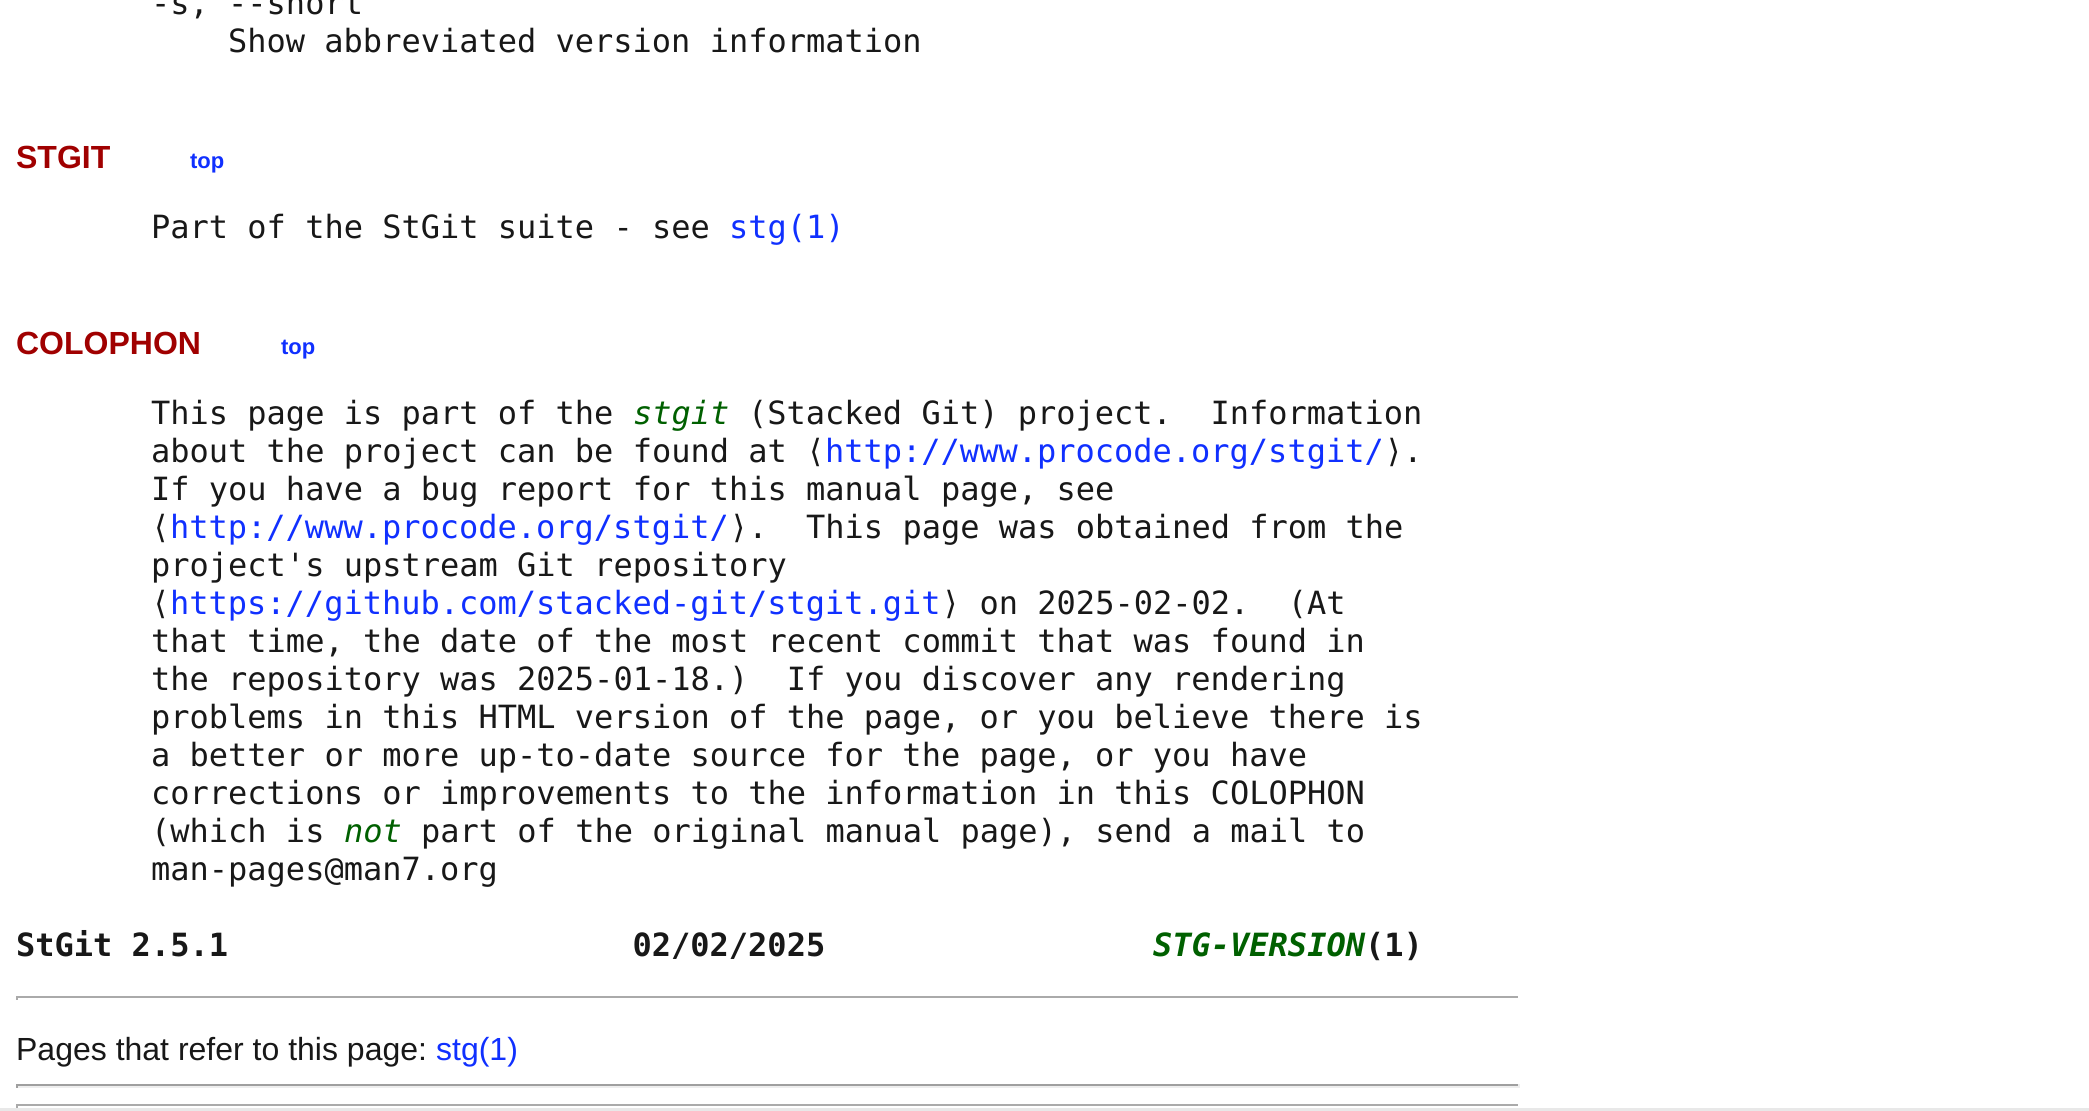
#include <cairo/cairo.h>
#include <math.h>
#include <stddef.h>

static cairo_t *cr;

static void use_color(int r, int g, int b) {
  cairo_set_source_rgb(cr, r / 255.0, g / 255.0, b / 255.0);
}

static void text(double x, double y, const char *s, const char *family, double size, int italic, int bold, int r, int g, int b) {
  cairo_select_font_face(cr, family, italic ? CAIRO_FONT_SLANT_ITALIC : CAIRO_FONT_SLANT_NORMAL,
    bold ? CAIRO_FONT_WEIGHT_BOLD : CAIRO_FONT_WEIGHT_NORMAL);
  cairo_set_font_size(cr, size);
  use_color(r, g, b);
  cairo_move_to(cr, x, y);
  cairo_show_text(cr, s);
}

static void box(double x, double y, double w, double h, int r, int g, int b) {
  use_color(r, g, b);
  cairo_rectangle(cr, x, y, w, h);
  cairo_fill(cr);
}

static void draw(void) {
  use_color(255, 255, 255);
  cairo_paint(cr);
  box(16, 996, 1504, 2, 170, 170, 170);
  box(1518, 996, 2, 4, 255, 255, 255);
  box(16, 996, 2, 4, 170, 170, 170);
  box(16, 1084, 1504, 2, 159, 159, 159);
  box(1518, 1084, 2, 4, 238, 238, 238);
  box(16, 1086, 1504, 2, 238, 238, 238);
  box(16, 1084, 2, 4, 159, 159, 159);
  box(16, 1104, 1504, 2, 170, 170, 170);
  box(1518, 1104, 2, 4, 255, 255, 255);
  box(16, 1104, 2, 4, 170, 170, 170);
  box(0, 1108, 2089, 3, 232, 232, 232);
  text(151, 14, "-s, --short", "DejaVu Sans Mono", 32, 0, 0, 24, 24, 24);
  text(228, 52, "Show abbreviated version information", "DejaVu Sans Mono", 32, 0, 0, 24, 24, 24);
  text(16, 168, "STGIT", "Liberation Sans", 32, 0, 1, 160, 0, 0);
  text(190, 168, "top", "Liberation Sans", 22, 0, 1, 16, 48, 255);
  text(151, 238, "Part of the StGit suite - see", "DejaVu Sans Mono", 32, 0, 0, 24, 24, 24);
  text(729, 238, "stg(1)", "DejaVu Sans Mono", 32, 0, 0, 16, 48, 255);
  text(16, 354, "COLOPHON", "Liberation Sans", 32, 0, 1, 160, 0, 0);
  text(281, 354, "top", "Liberation Sans", 22, 0, 1, 16, 48, 255);
  text(151, 424, "This page is part of the", "DejaVu Sans Mono", 32, 0, 0, 24, 24, 24);
  text(633, 424, "stgit", "DejaVu Sans Mono", 32, 1, 0, 0, 96, 0);
  text(748, 424, "(Stacked Git) project.  Information", "DejaVu Sans Mono", 32, 0, 0, 24, 24, 24);
  text(151, 462, "about the project can be found at ⟨", "DejaVu Sans Mono", 32, 0, 0, 24, 24, 24);
  text(825, 462, "http://www.procode.org/stgit/", "DejaVu Sans Mono", 32, 0, 0, 16, 48, 255);
  text(1384, 462, "⟩.", "DejaVu Sans Mono", 32, 0, 0, 24, 24, 24);
  text(151, 500, "If you have a bug report for this manual page, see", "DejaVu Sans Mono", 32, 0, 0, 24, 24, 24);
  text(151, 538, "⟨", "DejaVu Sans Mono", 32, 0, 0, 24, 24, 24);
  text(170, 538, "http://www.procode.org/stgit/", "DejaVu Sans Mono", 32, 0, 0, 16, 48, 255);
  text(729, 538, "⟩.  This page was obtained from the", "DejaVu Sans Mono", 32, 0, 0, 24, 24, 24);
  text(151, 576, "project's upstream Git repository", "DejaVu Sans Mono", 32, 0, 0, 24, 24, 24);
  text(151, 614, "⟨", "DejaVu Sans Mono", 32, 0, 0, 24, 24, 24);
  text(170, 614, "https://github.com/stacked-git/stgit.git", "DejaVu Sans Mono", 32, 0, 0, 16, 48, 255);
  text(941, 614, "⟩ on 2025-02-02.  (At", "DejaVu Sans Mono", 32, 0, 0, 24, 24, 24);
  text(151, 652, "that time, the date of the most recent commit that was found in", "DejaVu Sans Mono", 32, 0, 0, 24, 24, 24);
  text(151, 690, "the repository was 2025-01-18.)  If you discover any rendering", "DejaVu Sans Mono", 32, 0, 0, 24, 24, 24);
  text(151, 728, "problems in this HTML version of the page, or you believe there is", "DejaVu Sans Mono", 32, 0, 0, 24, 24, 24);
  text(151, 766, "a better or more up-to-date source for the page, or you have", "DejaVu Sans Mono", 32, 0, 0, 24, 24, 24);
  text(151, 804, "corrections or improvements to the information in this COLOPHON", "DejaVu Sans Mono", 32, 0, 0, 24, 24, 24);
  text(151, 842, "(which is", "DejaVu Sans Mono", 32, 0, 0, 24, 24, 24);
  text(344, 842, "not", "DejaVu Sans Mono", 32, 1, 0, 0, 96, 0);
  text(421, 842, "part of the original manual page), send a mail to", "DejaVu Sans Mono", 32, 0, 0, 24, 24, 24);
  text(151, 880, "man-pages@man7.org", "DejaVu Sans Mono", 32, 0, 0, 24, 24, 24);
  text(16, 956, "StGit 2.5.1                     02/02/2025", "DejaVu Sans Mono", 32, 0, 1, 24, 24, 24);
  text(1153, 956, "STG-VERSION", "DejaVu Sans Mono", 32, 1, 1, 0, 96, 0);
  text(1365, 956, "(1)", "DejaVu Sans Mono", 32, 0, 1, 24, 24, 24);
  text(16, 1060, "Pages that refer to this page:", "Liberation Sans", 32, 0, 0, 24, 24, 24);
  text(436, 1060, "stg(1)", "Liberation Sans", 32, 0, 0, 16, 48, 255);
}

int main(void) {
  cairo_surface_t *surface = cairo_image_surface_create(CAIRO_FORMAT_RGB24, 2089, 1111);
  cr = cairo_create(surface);
  cairo_font_options_t *options = cairo_font_options_create();
  cairo_font_options_set_hint_metrics(options, CAIRO_HINT_METRICS_OFF);
  cairo_font_options_set_hint_style(options, CAIRO_HINT_STYLE_NONE);
  cairo_set_font_options(cr, options);
  cairo_set_miter_limit(cr, 4);
  draw();
  cairo_surface_write_to_png(surface, "out.png");
  cairo_font_options_destroy(options);
  cairo_destroy(cr);
  cairo_surface_destroy(surface);
  return 0;
}
